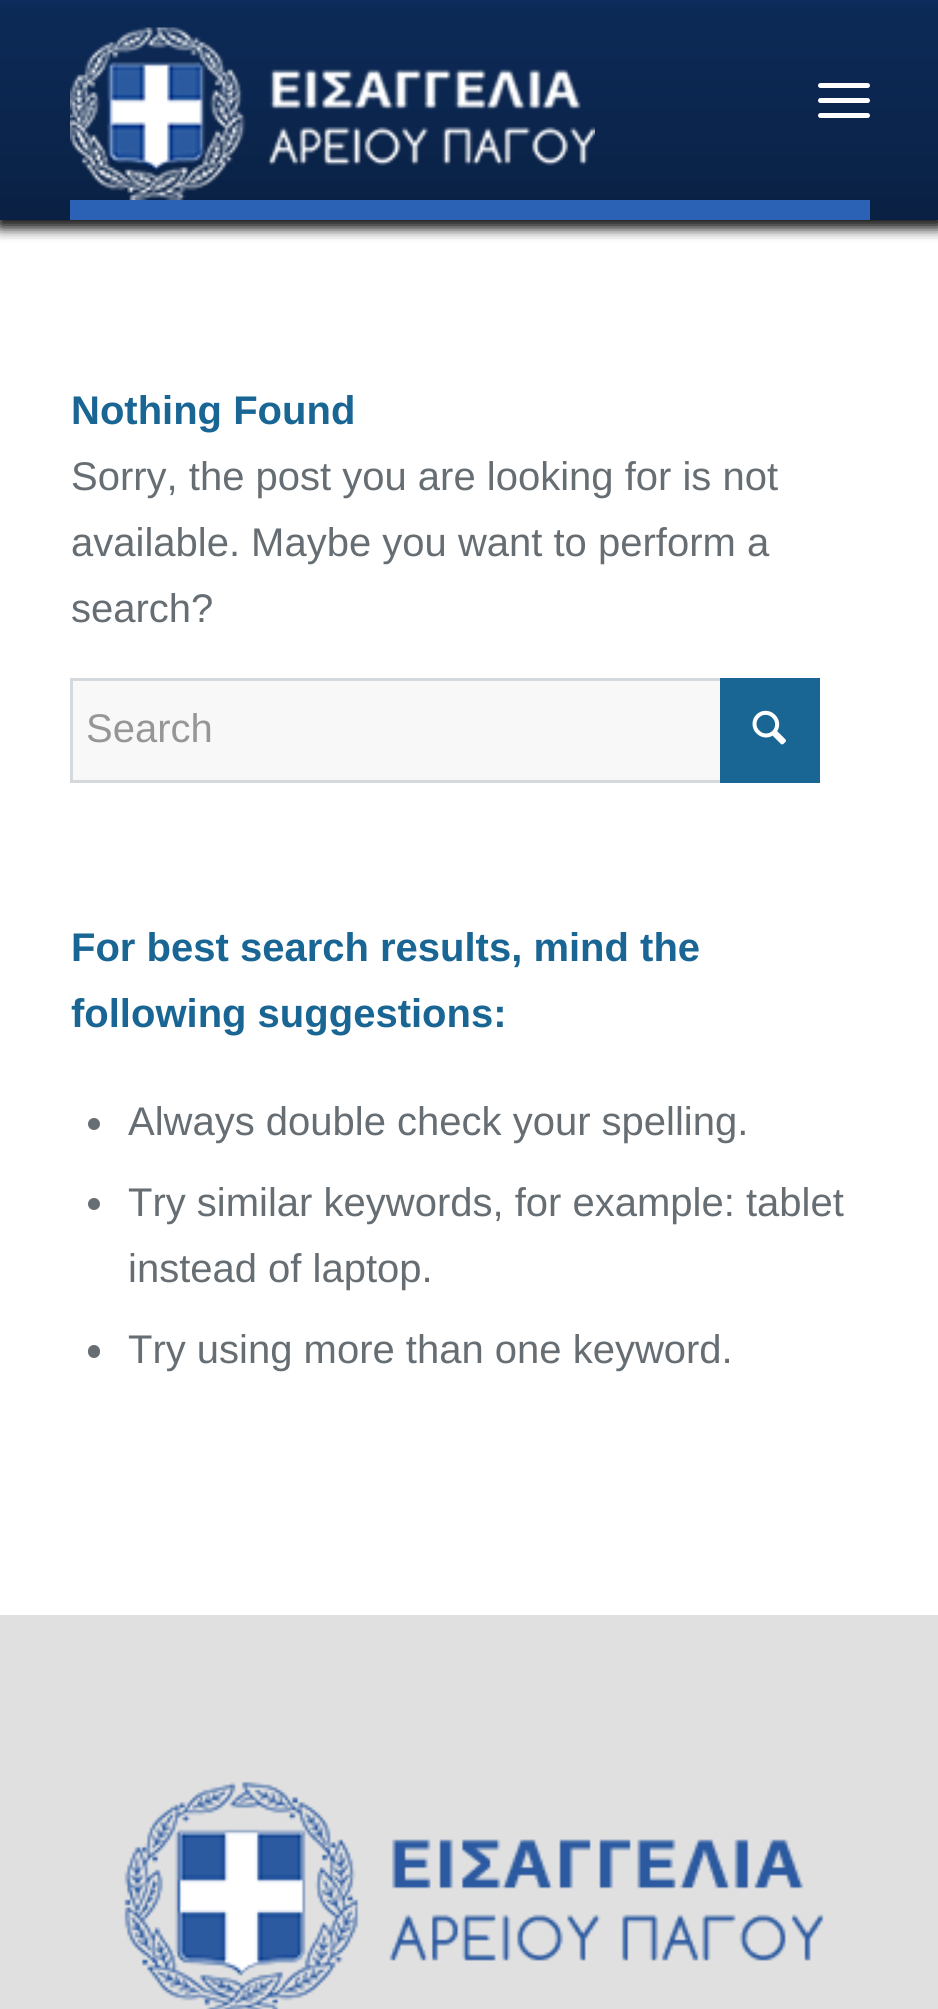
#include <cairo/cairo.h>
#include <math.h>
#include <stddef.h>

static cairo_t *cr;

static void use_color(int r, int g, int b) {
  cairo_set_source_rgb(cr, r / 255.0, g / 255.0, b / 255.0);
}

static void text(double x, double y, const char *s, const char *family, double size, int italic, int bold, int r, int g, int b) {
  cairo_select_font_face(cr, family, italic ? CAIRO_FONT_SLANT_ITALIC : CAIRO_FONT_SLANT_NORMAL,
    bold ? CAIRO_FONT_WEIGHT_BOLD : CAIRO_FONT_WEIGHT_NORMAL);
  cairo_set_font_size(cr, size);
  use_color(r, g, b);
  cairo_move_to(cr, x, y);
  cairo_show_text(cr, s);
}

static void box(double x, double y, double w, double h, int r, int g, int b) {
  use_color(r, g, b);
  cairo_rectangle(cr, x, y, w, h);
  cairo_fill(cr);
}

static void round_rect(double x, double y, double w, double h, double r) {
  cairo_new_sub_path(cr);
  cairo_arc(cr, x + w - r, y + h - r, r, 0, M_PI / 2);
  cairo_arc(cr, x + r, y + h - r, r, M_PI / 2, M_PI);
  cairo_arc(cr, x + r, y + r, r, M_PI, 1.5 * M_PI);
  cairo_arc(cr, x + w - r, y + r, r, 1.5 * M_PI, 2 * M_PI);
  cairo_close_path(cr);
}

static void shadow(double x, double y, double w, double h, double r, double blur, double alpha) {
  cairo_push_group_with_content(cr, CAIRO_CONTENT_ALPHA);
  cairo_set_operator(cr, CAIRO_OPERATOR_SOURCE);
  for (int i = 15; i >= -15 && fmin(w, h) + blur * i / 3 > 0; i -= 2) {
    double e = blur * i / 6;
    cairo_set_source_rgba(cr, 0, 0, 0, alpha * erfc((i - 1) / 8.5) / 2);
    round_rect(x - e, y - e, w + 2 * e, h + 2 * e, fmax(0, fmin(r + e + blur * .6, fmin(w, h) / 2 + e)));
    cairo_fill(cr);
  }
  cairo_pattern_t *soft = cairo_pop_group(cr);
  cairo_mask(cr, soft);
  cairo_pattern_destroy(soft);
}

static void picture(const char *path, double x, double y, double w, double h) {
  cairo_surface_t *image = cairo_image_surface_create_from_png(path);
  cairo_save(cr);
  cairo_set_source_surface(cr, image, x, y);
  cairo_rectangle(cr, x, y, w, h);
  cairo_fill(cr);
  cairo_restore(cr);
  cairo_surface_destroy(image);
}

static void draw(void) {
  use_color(255, 255, 255);
  cairo_paint(cr);
  use_color(28, 28, 28);
  shadow(0, 5, 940, 220, 0, 7.5, 1);
  box(0, 0, 938, 220, 13, 44, 91);
  picture("img_01.png", 0, 5, 938, 215);
  cairo_save(cr);
  cairo_rectangle(cr, 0, 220, 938, 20);
  cairo_clip(cr);
  use_color(28, 28, 28);
  shadow(0, 5, 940, 220, 0, 7.5, 1);
  cairo_restore(cr);
  box(70, 200, 800, 20, 44, 98, 181);
  picture("img_02.png", 70, 27, 525, 173);
  use_color(255, 255, 255);
  round_rect(818, 98, 52, 5, 2.5);
  cairo_fill(cr);
  round_rect(818, 83, 52, 5, 2.5);
  cairo_fill(cr);
  round_rect(818, 113, 52, 5, 2.5);
  cairo_fill(cr);
  box(73, 681, 647, 99, 248, 248, 248);
  cairo_rectangle(cr, 71.5, 679.5, 747, 102);
  use_color(211, 217, 221);
  cairo_set_line_width(cr, 3);
  cairo_stroke(cr);
  box(720, 678, 100, 105, 25, 101, 148);
  picture("img_03.png", 752, 710, 34, 35);
  use_color(102, 110, 115);
  cairo_arc(cr, 94, 1124, 6, 0, 2 * M_PI);
  cairo_fill(cr);
  cairo_arc(cr, 94, 1204, 6, 0, 2 * M_PI);
  cairo_fill(cr);
  round_rect(88, 1345, 12, 13, 6);
  cairo_fill(cr);
  box(0, 1615, 938, 394, 224, 224, 224);
  picture("img_04.png", 124, 1781, 700, 228);
  text(71, 424, "Nothing Found", "Liberation Sans", 40, 0, 1, 25, 101, 148);
  text(71, 490, "Sorry, the post you are looking for is not", "Liberation Sans", 40, 0, 0, 102, 110, 115);
  text(71, 556, "available. Maybe you want to perform a", "Liberation Sans", 40, 0, 0, 102, 110, 115);
  text(71, 622, "search?", "Liberation Sans", 40, 0, 0, 102, 110, 115);
  text(86, 742, "Search", "Liberation Sans", 40, 0, 0, 150, 150, 150);
  text(71, 961, "For best search results, mind the", "Liberation Sans", 40, 0, 1, 25, 101, 148);
  text(71, 1027, "following suggestions:", "Liberation Sans", 40, 0, 1, 25, 101, 148);
  text(128, 1135, "Always double check your spelling.", "Liberation Sans", 40, 0, 0, 102, 110, 115);
  text(128, 1216, "Try similar keywords, for example: tablet", "Liberation Sans", 40, 0, 0, 102, 110, 115);
  text(128, 1282, "instead of laptop.", "Liberation Sans", 40, 0, 0, 102, 110, 115);
  text(128, 1363, "Try using more than one keyword.", "Liberation Sans", 40, 0, 0, 102, 110, 115);
}

int main(void) {
  cairo_surface_t *surface = cairo_image_surface_create(CAIRO_FORMAT_RGB24, 938, 2009);
  cr = cairo_create(surface);
  cairo_font_options_t *options = cairo_font_options_create();
  cairo_font_options_set_hint_metrics(options, CAIRO_HINT_METRICS_OFF);
  cairo_font_options_set_hint_style(options, CAIRO_HINT_STYLE_NONE);
  cairo_set_font_options(cr, options);
  cairo_set_miter_limit(cr, 4);
  draw();
  cairo_surface_write_to_png(surface, "out.png");
  cairo_font_options_destroy(options);
  cairo_destroy(cr);
  cairo_surface_destroy(surface);
  return 0;
}
